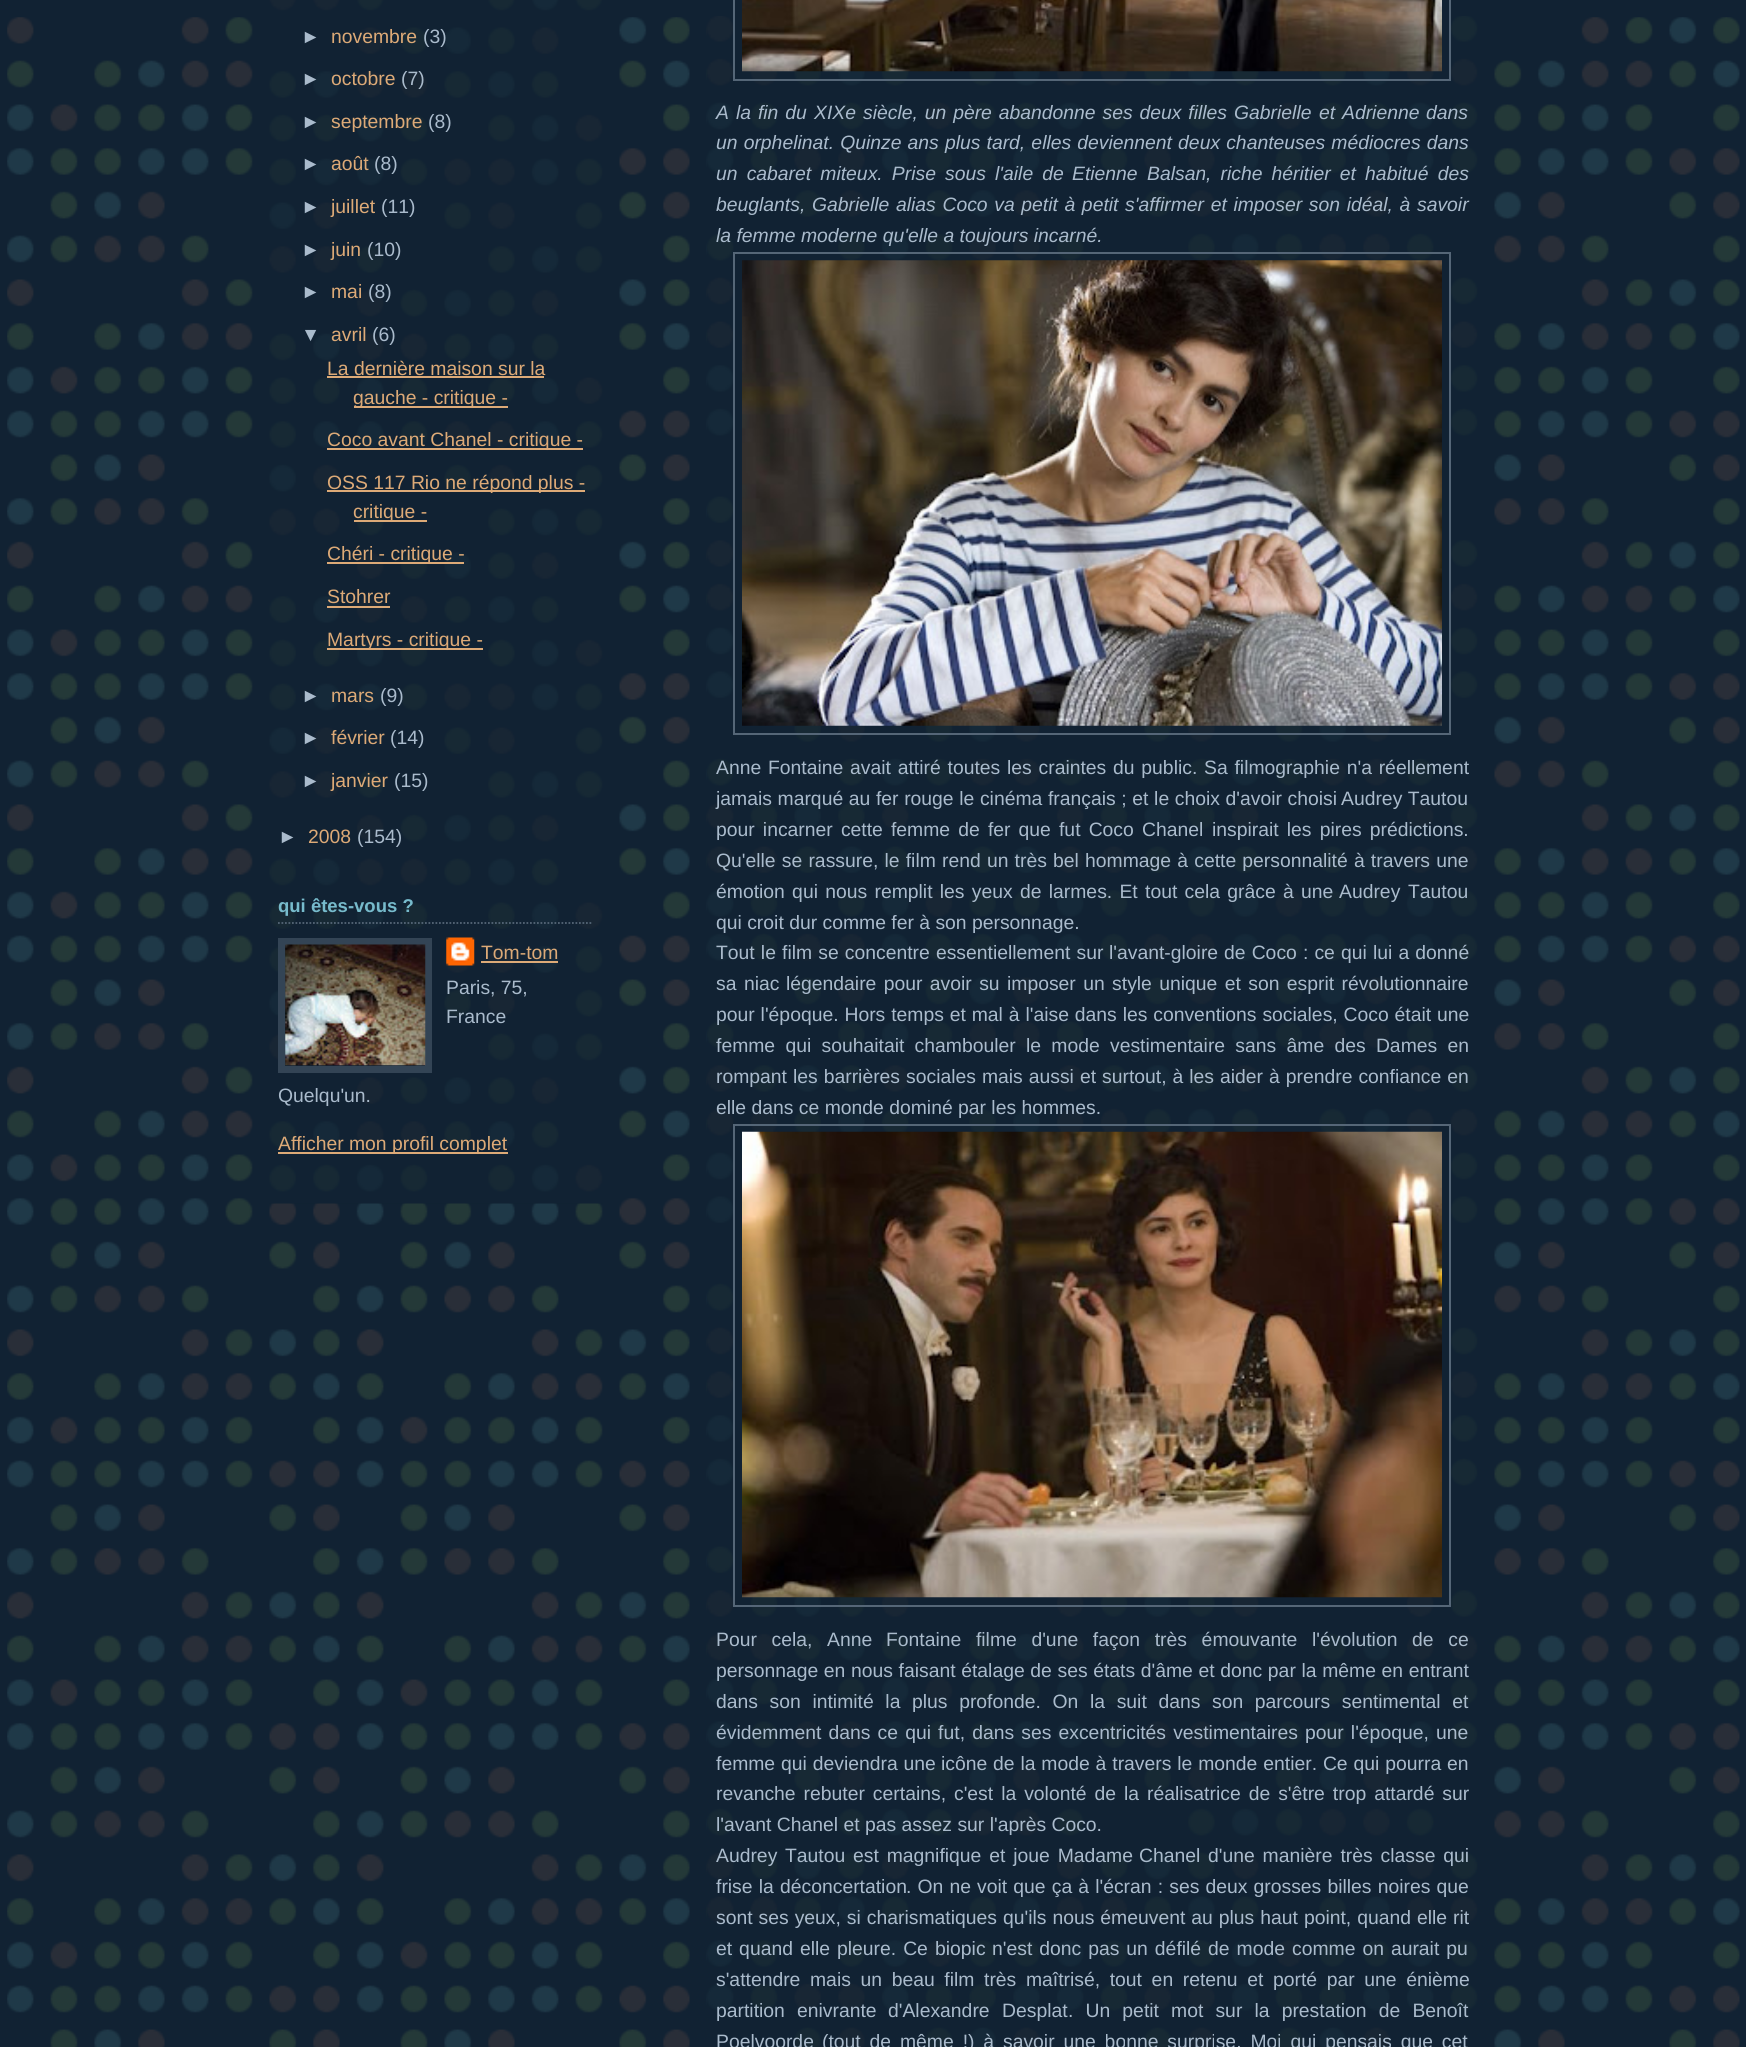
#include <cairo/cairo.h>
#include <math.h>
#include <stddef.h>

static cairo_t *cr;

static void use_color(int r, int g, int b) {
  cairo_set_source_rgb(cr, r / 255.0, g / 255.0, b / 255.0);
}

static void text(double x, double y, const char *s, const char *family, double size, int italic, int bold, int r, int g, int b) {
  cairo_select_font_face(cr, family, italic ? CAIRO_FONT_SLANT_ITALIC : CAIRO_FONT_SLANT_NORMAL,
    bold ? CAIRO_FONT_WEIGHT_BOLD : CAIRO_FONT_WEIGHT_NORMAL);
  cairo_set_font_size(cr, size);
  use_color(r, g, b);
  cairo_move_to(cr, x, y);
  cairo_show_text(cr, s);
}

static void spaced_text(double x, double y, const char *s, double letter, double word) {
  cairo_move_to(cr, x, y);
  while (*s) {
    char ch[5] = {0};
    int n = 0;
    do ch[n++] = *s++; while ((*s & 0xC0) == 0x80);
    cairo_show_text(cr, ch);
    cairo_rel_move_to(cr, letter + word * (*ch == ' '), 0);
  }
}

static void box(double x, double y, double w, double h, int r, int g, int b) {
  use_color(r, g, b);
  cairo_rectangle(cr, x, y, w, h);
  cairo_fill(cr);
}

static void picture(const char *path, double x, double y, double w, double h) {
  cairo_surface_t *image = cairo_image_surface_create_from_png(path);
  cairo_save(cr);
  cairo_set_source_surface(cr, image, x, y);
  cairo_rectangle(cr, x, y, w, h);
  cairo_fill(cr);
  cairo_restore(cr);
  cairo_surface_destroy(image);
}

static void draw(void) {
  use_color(17, 34, 51);
  cairo_paint(cr);
  picture("img_01.png", 7, 17, 1733, 2030);
  picture("img_02.png", 269, 0, 334, 1204);
  box(327, 376, 217, 2, 221, 170, 119);
  box(354, 406, 154, 2, 221, 170, 119);
  box(327, 448, 256, 2, 221, 170, 119);
  box(327, 490, 258, 2, 221, 170, 119);
  box(354, 520, 73, 2, 221, 170, 119);
  box(327, 562, 137, 2, 221, 170, 119);
  box(327, 606, 63, 2, 221, 170, 119);
  box(327, 648, 156, 2, 221, 170, 119);
  cairo_new_path(cr);
  cairo_move_to(cr, 278, 923);
  cairo_line_to(cr, 593, 923);
  use_color(85, 102, 119);
  cairo_set_line_width(cr, 1.8);
  cairo_set_dash(cr, (double[]){1.75, 1.75}, 2, 0);
  cairo_stroke(cr);
  cairo_rectangle(cr, 281.5, 941.5, 147, 128);
  use_color(51, 68, 85);
  cairo_set_line_width(cr, 7);
  cairo_set_dash(cr, NULL, 0, 0);
  cairo_stroke(cr);
  picture("img_03.png", 285, 944, 141, 122);
  picture("img_04.png", 446, 937, 29, 29);
  box(481, 961, 77, 2, 221, 170, 119);
  box(278, 1152, 230, 2, 221, 170, 119);
  picture("img_05.png", 707, 16, 771, 2031);
  cairo_rectangle(cr, 734, -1, 716, 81);
  use_color(85, 102, 119);
  cairo_set_line_width(cr, 2);
  cairo_stroke(cr);
  picture("img_06.png", 742, 0, 700, 72);
  cairo_rectangle(cr, 734, 253, 716, 481);
  cairo_stroke(cr);
  picture("img_07.png", 742, 260, 700, 466);
  cairo_rectangle(cr, 734, 1125, 716, 481);
  cairo_stroke(cr);
  picture("img_08.png", 742, 1131, 700, 467);
  text(301, 43, "►", "Liberation Sans", 19.35, 0, 0, 170, 187, 204);
  text(331, 43, "novembre", "Liberation Sans", 19.35, 0, 0, 221, 170, 119);
  text(423, 43, "(3)", "Liberation Sans", 19.35, 0, 0, 170, 187, 204);
  text(301, 85, "►", "Liberation Sans", 19.35, 0, 0, 170, 187, 204);
  text(331, 85, "octobre", "Liberation Sans", 19.35, 0, 0, 221, 170, 119);
  text(401, 85, "(7)", "Liberation Sans", 19.35, 0, 0, 170, 187, 204);
  text(301, 128, "►", "Liberation Sans", 19.35, 0, 0, 170, 187, 204);
  text(331, 128, "septembre", "Liberation Sans", 19.35, 0, 0, 221, 170, 119);
  text(428, 128, "(8)", "Liberation Sans", 19.35, 0, 0, 170, 187, 204);
  text(301, 170, "►", "Liberation Sans", 19.35, 0, 0, 170, 187, 204);
  text(331, 170, "août", "Liberation Sans", 19.35, 0, 0, 221, 170, 119);
  text(374, 170, "(8)", "Liberation Sans", 19.35, 0, 0, 170, 187, 204);
  text(301, 213, "►", "Liberation Sans", 19.35, 0, 0, 170, 187, 204);
  text(331, 213, "juillet", "Liberation Sans", 19.35, 0, 0, 221, 170, 119);
  text(381, 213, "(11)", "Liberation Sans", 19.35, 0, 0, 170, 187, 204);
  text(301, 256, "►", "Liberation Sans", 19.35, 0, 0, 170, 187, 204);
  text(331, 256, "juin", "Liberation Sans", 19.35, 0, 0, 221, 170, 119);
  text(367, 256, "(10)", "Liberation Sans", 19.35, 0, 0, 170, 187, 204);
  text(301, 298, "►", "Liberation Sans", 19.35, 0, 0, 170, 187, 204);
  text(331, 298, "mai", "Liberation Sans", 19.35, 0, 0, 221, 170, 119);
  text(368, 298, "(8)", "Liberation Sans", 19.35, 0, 0, 170, 187, 204);
  text(301, 341, "▼", "Liberation Sans", 19.35, 0, 0, 170, 187, 204);
  text(331, 341, "avril", "Liberation Sans", 19.35, 0, 0, 221, 170, 119);
  text(372, 341, "(6)", "Liberation Sans", 19.35, 0, 0, 170, 187, 204);
  text(327, 375, "La dernière maison sur la", "Liberation Sans", 19.35, 0, 0, 221, 170, 119);
  text(353, 404, "gauche - critique -", "Liberation Sans", 19.35, 0, 0, 221, 170, 119);
  text(327, 446, "Coco avant Chanel - critique -", "Liberation Sans", 19.35, 0, 0, 221, 170, 119);
  text(327, 489, "OSS 117 Rio ne répond plus -", "Liberation Sans", 19.35, 0, 0, 221, 170, 119);
  text(353, 518, "critique -", "Liberation Sans", 19.35, 0, 0, 221, 170, 119);
  text(327, 560, "Chéri - critique -", "Liberation Sans", 19.35, 0, 0, 221, 170, 119);
  text(327, 603, "Stohrer", "Liberation Sans", 19.35, 0, 0, 221, 170, 119);
  text(327, 646, "Martyrs - critique -", "Liberation Sans", 19.35, 0, 0, 221, 170, 119);
  text(301, 702, "►", "Liberation Sans", 19.35, 0, 0, 170, 187, 204);
  text(331, 702, "mars", "Liberation Sans", 19.35, 0, 0, 221, 170, 119);
  text(380, 702, "(9)", "Liberation Sans", 19.35, 0, 0, 170, 187, 204);
  text(301, 744, "►", "Liberation Sans", 19.35, 0, 0, 170, 187, 204);
  text(331, 744, "février", "Liberation Sans", 19.35, 0, 0, 221, 170, 119);
  text(390, 744, "(14)", "Liberation Sans", 19.35, 0, 0, 170, 187, 204);
  text(301, 787, "►", "Liberation Sans", 19.35, 0, 0, 170, 187, 204);
  text(331, 787, "janvier", "Liberation Sans", 19.35, 0, 0, 221, 170, 119);
  text(394, 787, "(15)", "Liberation Sans", 19.35, 0, 0, 170, 187, 204);
  text(278, 843, "►", "Liberation Sans", 19.35, 0, 0, 170, 187, 204);
  text(308, 843, "2008", "Liberation Sans", 19.35, 0, 0, 221, 170, 119);
  text(357, 843, "(154)", "Liberation Sans", 19.35, 0, 0, 170, 187, 204);
  text(278, 912, "qui êtes-vous ?", "Liberation Sans", 18.5, 0, 1, 119, 187, 204);
  text(481, 959, "Tom-tom", "Liberation Sans", 19.35, 0, 0, 221, 170, 119);
  text(446, 994, "Paris, 75,", "Liberation Sans", 19.35, 0, 0, 170, 187, 204);
  text(446, 1023, "France", "Liberation Sans", 19.35, 0, 0, 170, 187, 204);
  text(278, 1102, "Quelqu'un.", "Liberation Sans", 19.35, 0, 0, 170, 187, 204);
  text(278, 1150, "Afficher mon profil complet", "Liberation Sans", 19.35, 0, 0, 221, 170, 119);
  cairo_select_font_face(cr, "Liberation Sans", CAIRO_FONT_SLANT_ITALIC, CAIRO_FONT_WEIGHT_NORMAL);
  use_color(170, 187, 204);
  spaced_text(716, 119, "A la fin du", 0, 1.6);
  text(814, 119, "XIXe", "Liberation Sans", 19.35, 1, 0, 170, 187, 204);
  spaced_text(863, 119, "siècle, un père abandonne ses deux filles", 0, 1.5);
  text(1234, 119, "Gabrielle", "Liberation Sans", 19.35, 1, 0, 170, 187, 204);
  text(1319, 119, "et", "Liberation Sans", 19.35, 1, 0, 170, 187, 204);
  text(1342, 119, "Adrienne", "Liberation Sans", 19.35, 1, 0, 170, 187, 204);
  text(1426, 119, "dans", "Liberation Sans", 19.35, 1, 0, 170, 187, 204);
  spaced_text(716, 149, "un orphelinat. Quinze ans plus tard, elles deviennent deux chanteuses médiocres dans", 0, 0.75);
  spaced_text(716, 180, "un cabaret miteux. Prise sous l'aile de", 0, 3.75);
  text(1072, 180, "Etienne", "Liberation Sans", 19.35, 1, 0, 170, 187, 204);
  text(1147, 180, "Balsan", "Liberation Sans", 19.35, 1, 0, 170, 187, 204);
  spaced_text(1206, 180, ", riche héritier et habitué des", 0, 3.75);
  spaced_text(716, 211, "beuglants, Gabrielle alias Coco va petit à petit s'affirmer et imposer son idéal, à savoir", 0, 1.25);
  text(716, 242, "la femme moderne qu'elle a toujours incarné.", "Liberation Sans", 19.35, 1, 0, 170, 187, 204);
  text(716, 774, "Anne", "Liberation Sans", 19.35, 0, 0, 170, 187, 204);
  spaced_text(768, 774, "Fontaine avait attiré toutes les craintes du public. Sa filmographie n'a réellement", 0, 1.4);
  spaced_text(716, 805, "jamais marqué au fer rouge le cinéma français ; et le choix d'avoir choisi", 0, 0.25);
  text(1341, 805, "Audrey Tautou", "Liberation Sans", 19.35, 0, 0, 170, 187, 204);
  spaced_text(716, 836, "pour incarner cette femme de fer que fut Coco", 0, 2.75);
  text(1142, 836, "Chanel", "Liberation Sans", 19.35, 0, 0, 170, 187, 204);
  spaced_text(1212, 836, "inspirait les pires prédictions.", 0, 2.75);
  spaced_text(716, 867, "Qu'elle se rassure, le film rend un très bel hommage à cette personnalité à travers une", 0, 0.8);
  spaced_text(716, 898, "émotion qui nous remplit les yeux de larmes. Et tout cela grâce à une", 0, 1.9);
  text(1339, 898, "Audrey", "Liberation Sans", 19.35, 0, 0, 170, 187, 204);
  text(1408, 898, "Tautou", "Liberation Sans", 19.35, 0, 0, 170, 187, 204);
  text(716, 929, "qui croit dur comme fer à son personnage.", "Liberation Sans", 19.35, 0, 0, 170, 187, 204);
  spaced_text(716, 959, "Tout le film se concentre essentiellement sur", 0, 0.75);
  text(1109, 959, "l'avant-gloire", "Liberation Sans", 19.35, 0, 0, 170, 187, 204);
  spaced_text(1224, 959, "de Coco : ce qui lui a donné", 0, 0.75);
  text(716, 990, "sa", "Liberation Sans", 19.35, 0, 0, 170, 187, 204);
  text(744, 990, "niac", "Liberation Sans", 19.35, 0, 0, 170, 187, 204);
  spaced_text(786, 990, "légendaire pour avoir su imposer un style unique et son esprit révolutionnaire", 0, 2);
  spaced_text(716, 1021, "pour l'époque. Hors temps et mal à l'aise dans les conventions sociales, Coco était une", 0, 0.5);
  spaced_text(716, 1052, "femme qui souhaitait chambouler le mode vestimentaire sans âme des Dames en", 0, 4.9);
  spaced_text(716, 1083, "rompant les barrières sociales mais aussi et surtout, à les aider à prendre confiance en", 0, 0.6);
  text(716, 1114, "elle dans ce monde dominé par les hommes.", "Liberation Sans", 19.35, 0, 0, 170, 187, 204);
  spaced_text(716, 1646, "Pour cela,", 0, 9.25);
  text(827, 1646, "Anne", "Liberation Sans", 19.35, 0, 0, 170, 187, 204);
  spaced_text(886, 1646, "Fontaine filme d'une façon très émouvante l'évolution de ce", 0, 9.25);
  spaced_text(716, 1677, "personnage en nous faisant étalage de ses états d'âme et donc par la même en entrant", 0, 0.25);
  spaced_text(716, 1708, "dans son intimité la plus profonde. On la suit dans son parcours sentimental et", 0, 6.25);
  spaced_text(716, 1739, "évidemment dans ce qui fut, dans ses excentricités vestimentaires pour l'époque, une", 0, 1.75);
  spaced_text(716, 1770, "femme qui deviendra une", 0, 0.5);
  text(941, 1770, "icône", "Liberation Sans", 19.35, 0, 0, 170, 187, 204);
  spaced_text(993, 1770, "de la mode à travers le monde entier. Ce qui pourra en", 0, 0.5);
  spaced_text(716, 1800, "revanche rebuter certains, c'est la volonté de la réalisatrice de s'être trop attardé sur", 0, 2.6);
  text(716, 1831, "l'avant Chanel et pas assez sur l'après Coco.", "Liberation Sans", 19.35, 0, 0, 170, 187, 204);
  text(716, 1862, "Audrey", "Liberation Sans", 19.35, 0, 0, 170, 187, 204);
  text(785, 1862, "Tautou", "Liberation Sans", 19.35, 0, 0, 170, 187, 204);
  spaced_text(853, 1862, "est magnifique et joue Madame", 0, 2.5);
  text(1139, 1862, "Chanel", "Liberation Sans", 19.35, 0, 0, 170, 187, 204);
  spaced_text(1208, 1862, "d'une manière très classe qui", 0, 2.5);
  spaced_text(716, 1893, "frise la", 0, 0.75);
  text(780, 1893, "déconcertation", "Liberation Sans", 19.35, 0, 0, 170, 187, 204);
  spaced_text(906, 1893, ". On ne voit que ça à l'écran : ses deux grosses billes noires que", 0, 0.75);
  spaced_text(716, 1924, "sont ses yeux, si charismatiques qu'ils nous émeuvent au plus haut point, quand elle rit", 0, 0.6);
  spaced_text(716, 1955, "et quand elle pleure. Ce", 0, 1.6);
  text(935, 1955, "biopic", "Liberation Sans", 19.35, 0, 0, 170, 187, 204);
  spaced_text(992, 1955, "n'est donc pas un défilé de mode comme on aurait pu", 0, 1.6);
  spaced_text(716, 1986, "s'attendre mais un beau film très maîtrisé, tout en retenu et porté par une énième", 0, 4.25);
  text(716, 2017, "partition", "Liberation Sans", 19.35, 0, 0, 170, 187, 204);
  text(797, 2017, "enivrante", "Liberation Sans", 19.35, 0, 0, 170, 187, 204);
  text(888, 2017, "d'Alexandre", "Liberation Sans", 19.35, 0, 0, 170, 187, 204);
  text(1002, 2017, "Desplat", "Liberation Sans", 19.35, 0, 0, 170, 187, 204);
  spaced_text(1068, 2017, ". Un petit mot sur la prestation de Benoît", 0, 6.75);
  text(716, 2048, "Poelvoorde", "Liberation Sans", 19.35, 0, 0, 170, 187, 204);
  spaced_text(822, 2048, "(tout de même !) à savoir une bonne surprise. Moi qui pensais que cet", 0, 3.5);
}

int main(void) {
  cairo_surface_t *surface = cairo_image_surface_create(CAIRO_FORMAT_RGB24, 1746, 2047);
  cr = cairo_create(surface);
  cairo_font_options_t *options = cairo_font_options_create();
  cairo_font_options_set_hint_metrics(options, CAIRO_HINT_METRICS_OFF);
  cairo_font_options_set_hint_style(options, CAIRO_HINT_STYLE_NONE);
  cairo_set_font_options(cr, options);
  cairo_set_miter_limit(cr, 4);
  draw();
  cairo_surface_write_to_png(surface, "out.png");
  cairo_font_options_destroy(options);
  cairo_destroy(cr);
  cairo_surface_destroy(surface);
  return 0;
}
